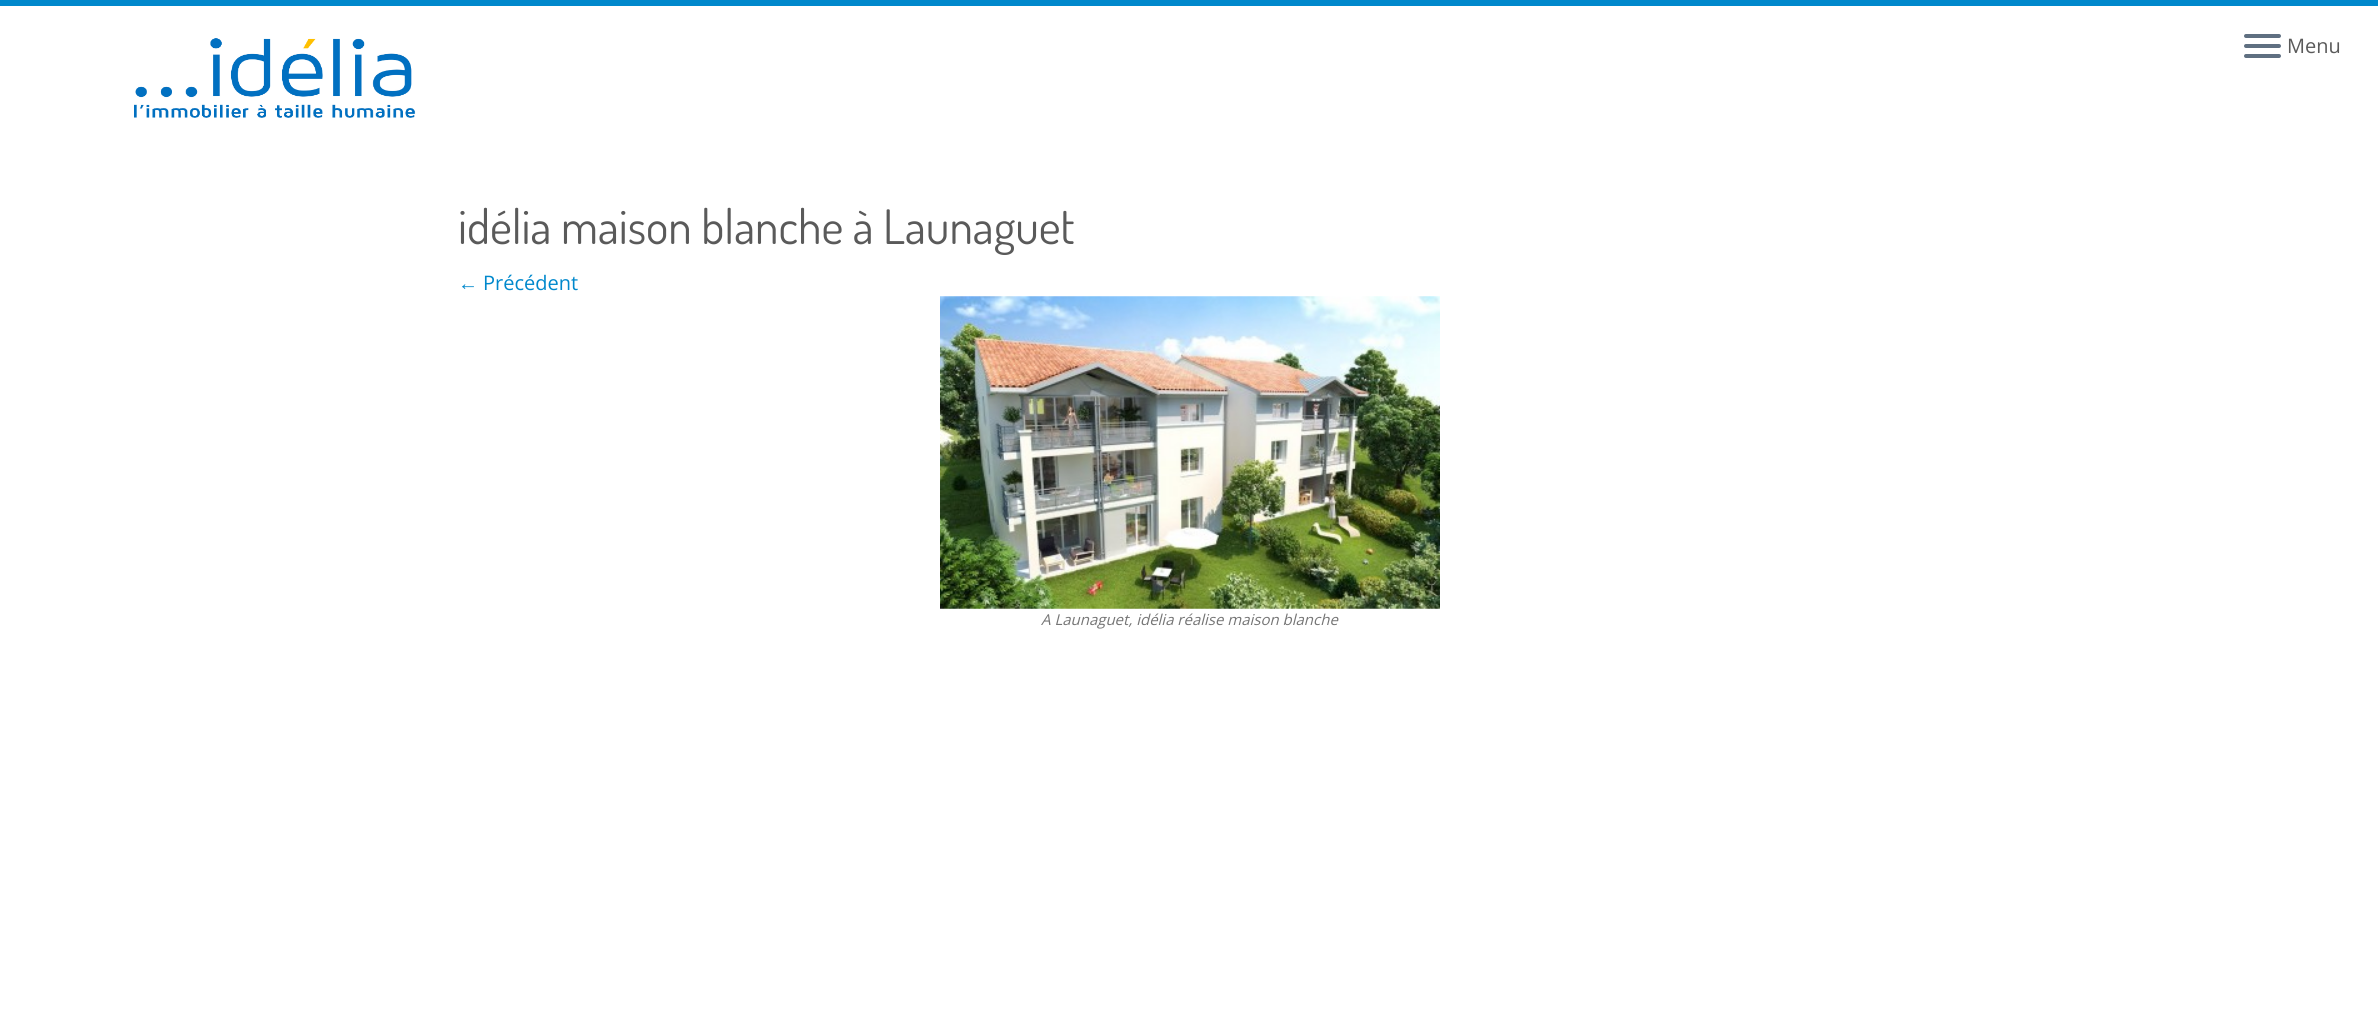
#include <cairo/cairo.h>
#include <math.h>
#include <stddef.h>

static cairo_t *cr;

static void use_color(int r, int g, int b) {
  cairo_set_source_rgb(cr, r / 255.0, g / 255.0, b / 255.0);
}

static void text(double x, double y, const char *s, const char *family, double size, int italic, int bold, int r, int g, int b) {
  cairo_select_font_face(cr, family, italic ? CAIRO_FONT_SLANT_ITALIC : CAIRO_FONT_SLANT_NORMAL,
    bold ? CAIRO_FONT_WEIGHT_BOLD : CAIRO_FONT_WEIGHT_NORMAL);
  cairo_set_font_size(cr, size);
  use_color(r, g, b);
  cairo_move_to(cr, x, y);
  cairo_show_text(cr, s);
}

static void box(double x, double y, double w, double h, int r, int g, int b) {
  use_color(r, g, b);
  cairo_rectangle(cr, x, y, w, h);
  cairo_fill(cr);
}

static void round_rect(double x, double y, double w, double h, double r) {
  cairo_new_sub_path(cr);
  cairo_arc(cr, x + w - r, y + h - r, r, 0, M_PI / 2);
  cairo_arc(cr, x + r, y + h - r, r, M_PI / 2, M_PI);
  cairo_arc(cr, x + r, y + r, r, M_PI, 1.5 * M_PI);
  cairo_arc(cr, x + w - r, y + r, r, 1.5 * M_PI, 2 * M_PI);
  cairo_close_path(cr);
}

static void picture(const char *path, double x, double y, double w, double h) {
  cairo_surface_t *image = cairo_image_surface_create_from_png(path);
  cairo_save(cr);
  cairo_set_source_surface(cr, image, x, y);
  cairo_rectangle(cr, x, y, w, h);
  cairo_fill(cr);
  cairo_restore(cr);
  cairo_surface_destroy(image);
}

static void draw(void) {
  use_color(255, 255, 255);
  cairo_paint(cr);
  box(0, 0, 2378, 6, 0, 136, 204);
  picture("img_01.png", 134, 38, 282, 80);
  use_color(95, 111, 129);
  round_rect(2244, 34, 37, 4, 2);
  cairo_fill(cr);
  round_rect(2244, 44, 37, 4, 2);
  cairo_fill(cr);
  round_rect(2244, 54, 37, 4, 2);
  cairo_fill(cr);
  picture("img_02.png", 940, 296, 500, 313);
  text(2287, 53, "Menu", "Open Sans", 20, 0, 0, 90, 90, 90);
  text(458, 244, "idélia maison blanche à Launaguet", "Dosis", 47.5, 0, 0, 90, 90, 90);
  text(458, 290, "←", "Liberation Serif", 20, 0, 0, 0, 136, 204);
  text(483, 290, "Précédent", "Open Sans", 20, 0, 0, 0, 136, 204);
  text(1041, 625, "A Launaguet, idélia réalise maison blanche", "Open Sans", 15, 1, 0, 117, 117, 117);
}

int main(void) {
  cairo_surface_t *surface = cairo_image_surface_create(CAIRO_FORMAT_RGB24, 2378, 1029);
  cr = cairo_create(surface);
  cairo_font_options_t *options = cairo_font_options_create();
  cairo_font_options_set_hint_metrics(options, CAIRO_HINT_METRICS_OFF);
  cairo_font_options_set_hint_style(options, CAIRO_HINT_STYLE_NONE);
  cairo_set_font_options(cr, options);
  cairo_set_miter_limit(cr, 4);
  draw();
  cairo_surface_write_to_png(surface, "out.png");
  cairo_font_options_destroy(options);
  cairo_destroy(cr);
  cairo_surface_destroy(surface);
  return 0;
}
